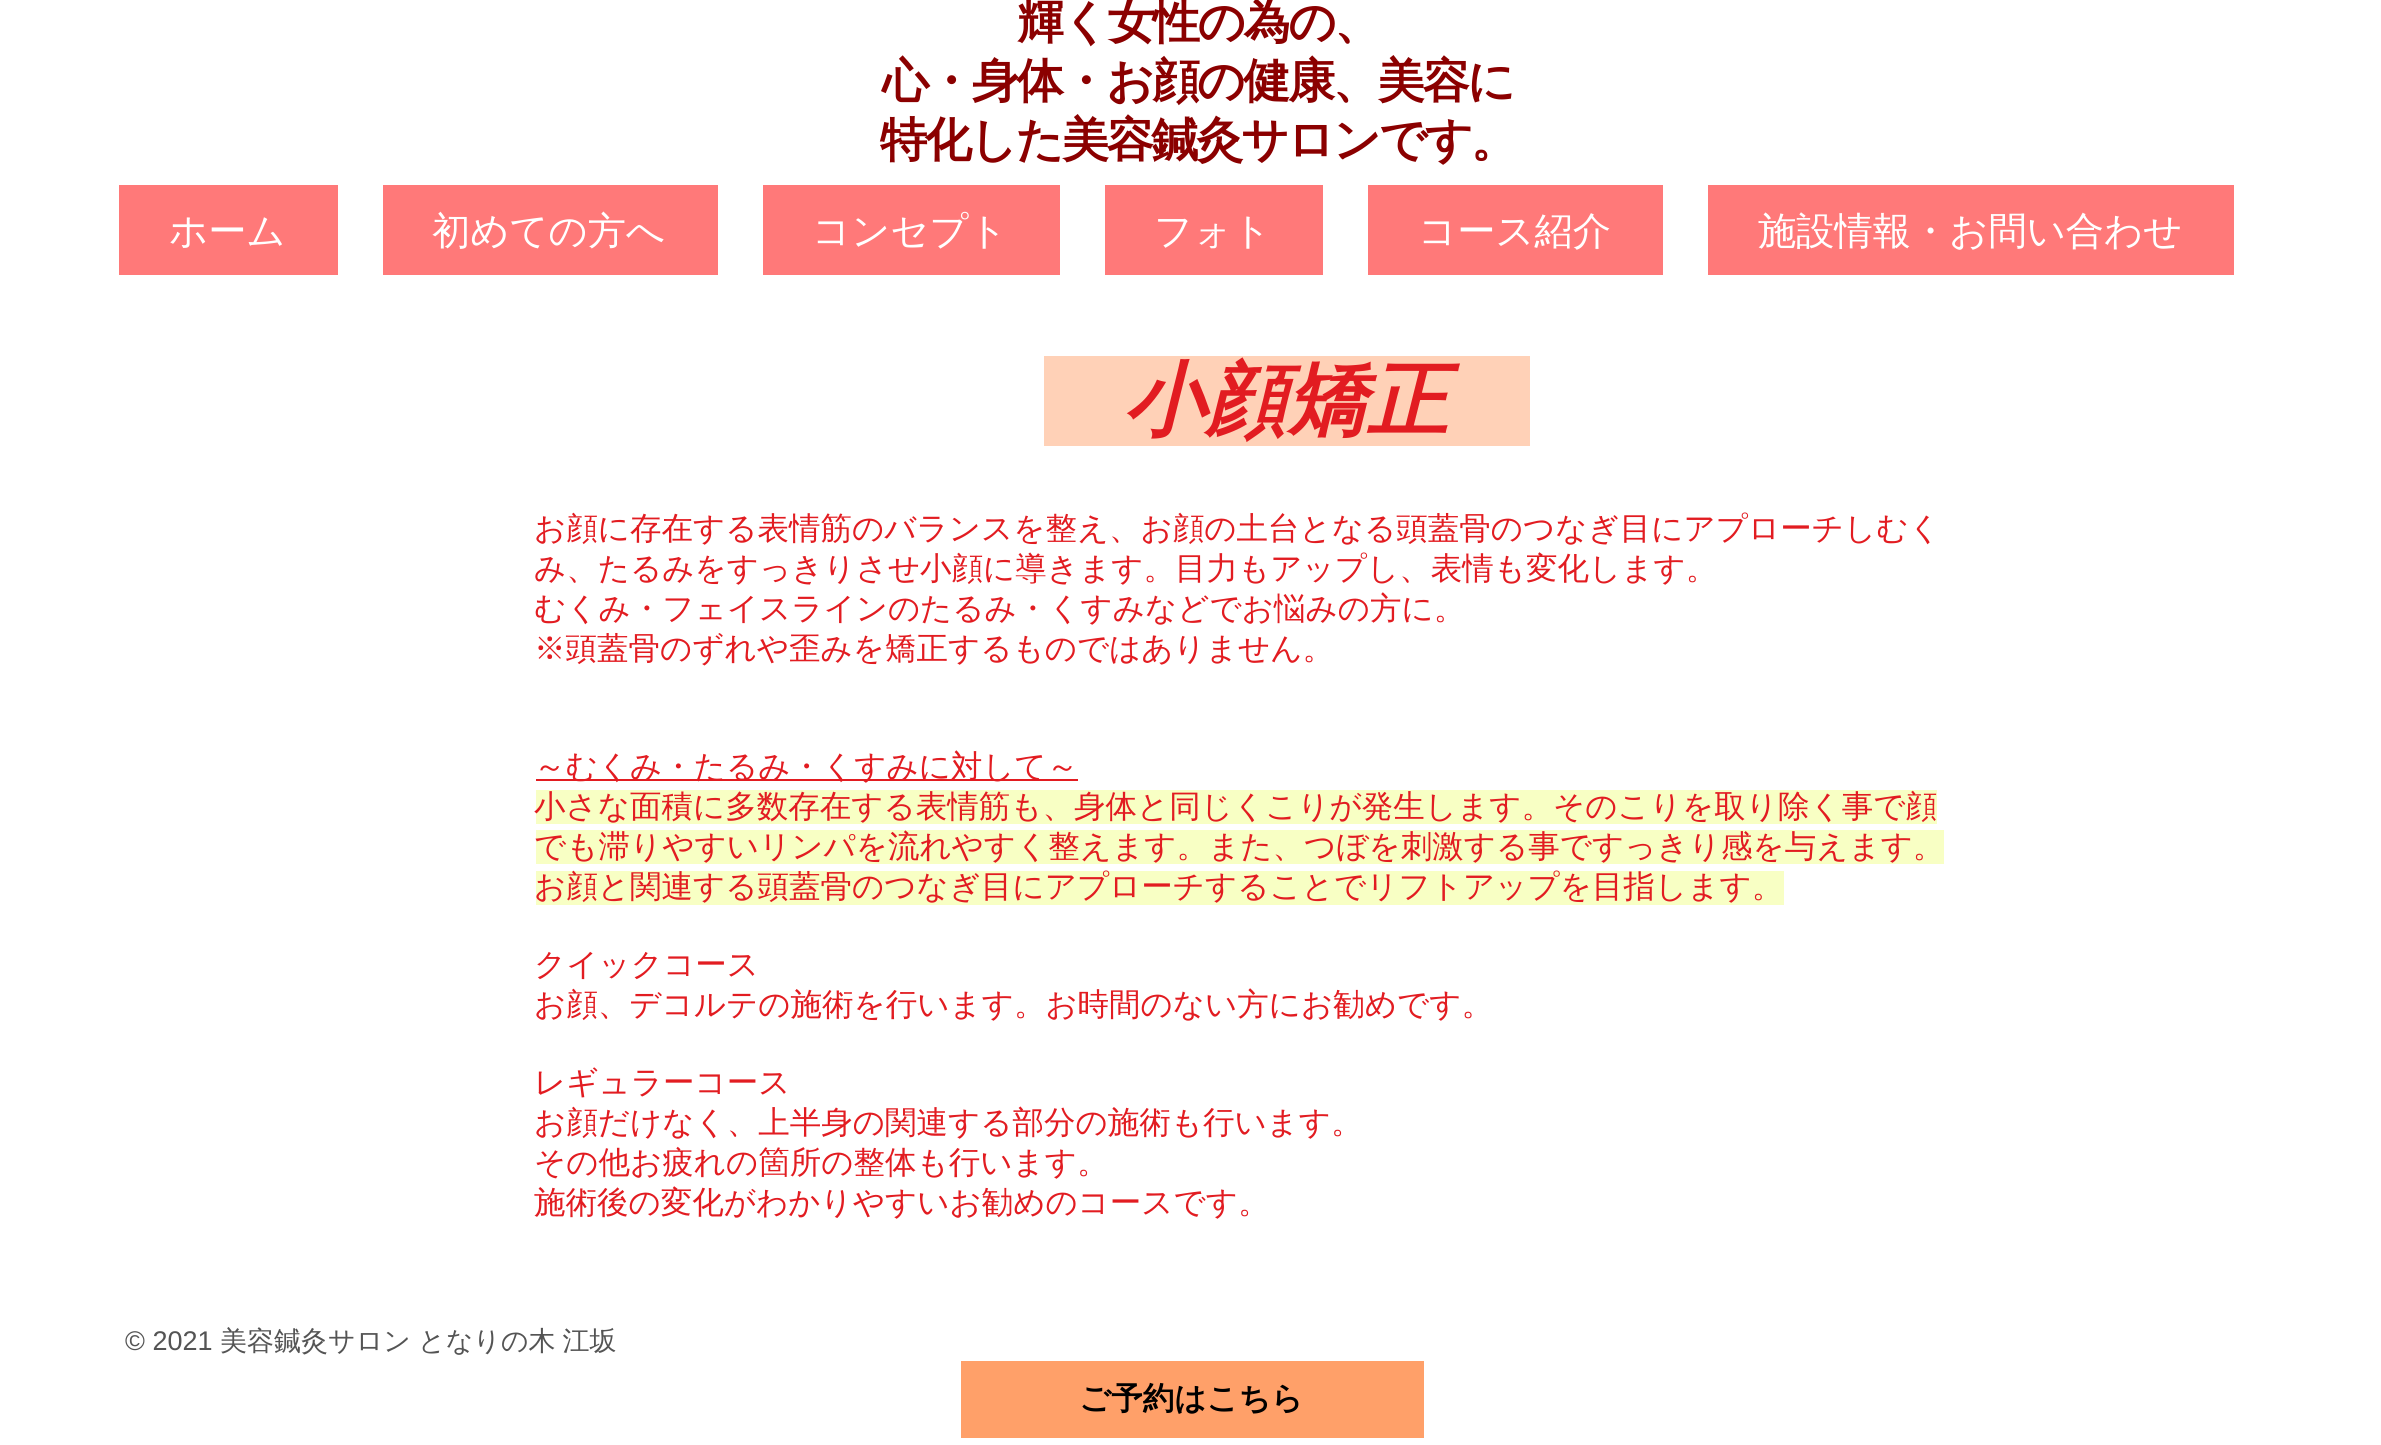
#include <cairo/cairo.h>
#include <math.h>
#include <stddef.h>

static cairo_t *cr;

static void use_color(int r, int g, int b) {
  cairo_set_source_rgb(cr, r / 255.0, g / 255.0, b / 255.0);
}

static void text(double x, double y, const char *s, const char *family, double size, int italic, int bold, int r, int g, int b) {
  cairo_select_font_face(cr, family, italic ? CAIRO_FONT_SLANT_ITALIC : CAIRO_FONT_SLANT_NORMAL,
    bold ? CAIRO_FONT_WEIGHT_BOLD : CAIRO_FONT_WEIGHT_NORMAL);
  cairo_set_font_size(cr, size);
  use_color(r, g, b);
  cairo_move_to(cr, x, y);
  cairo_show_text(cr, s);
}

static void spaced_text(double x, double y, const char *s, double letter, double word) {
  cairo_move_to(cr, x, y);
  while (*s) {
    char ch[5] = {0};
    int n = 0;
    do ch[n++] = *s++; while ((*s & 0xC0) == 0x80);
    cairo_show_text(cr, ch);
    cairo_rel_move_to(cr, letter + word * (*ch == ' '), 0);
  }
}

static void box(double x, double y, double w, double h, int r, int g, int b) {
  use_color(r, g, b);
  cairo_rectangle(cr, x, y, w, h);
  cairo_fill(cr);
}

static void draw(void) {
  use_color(255, 255, 255);
  cairo_paint(cr);
  box(119, 185, 219, 90, 255, 121, 121);
  box(383, 185, 335, 90, 255, 121, 121);
  box(763, 185, 297, 90, 255, 121, 121);
  box(1105, 185, 218, 90, 255, 121, 121);
  box(1368, 185, 295, 90, 255, 121, 121);
  box(1708, 185, 526, 90, 255, 121, 121);
  box(1044, 356, 486, 90, 255, 209, 183);
  box(536, 779, 542, 2, 226, 28, 33);
  box(536, 790, 1401, 34, 248, 255, 196);
  box(536, 830, 1408, 34, 248, 255, 196);
  box(536, 871, 1248, 34, 248, 255, 196);
  box(961, 1361, 463, 77, 255, 160, 105);
  cairo_select_font_face(cr, "WenQuanYi Zen Hei", CAIRO_FONT_SLANT_NORMAL, CAIRO_FONT_WEIGHT_BOLD);
  cairo_set_font_size(cr, 47.25);
  use_color(139, 0, 0);
  spaced_text(1017, 38, "輝く女性の為の、", -2.4, 0);
  spaced_text(882, 97, "心・身体・お顔の健康、美容に", -2.4, 0);
  spaced_text(880, 156, "特化した美容鍼灸サロンです。", -2.4, 0);
  text(169, 244, "ホーム", "WenQuanYi Zen Hei Medium", 38.25, 0, 0, 255, 255, 255);
  text(432, 244, "初めての方へ", "WenQuanYi Zen Hei Medium", 38.25, 0, 0, 255, 255, 255);
  text(812, 244, "コンセプト", "WenQuanYi Zen Hei Medium", 38.25, 0, 0, 255, 255, 255);
  text(1154, 244, "フォト", "WenQuanYi Zen Hei Medium", 38.25, 0, 0, 255, 255, 255);
  text(1418, 244, "コース紹介", "WenQuanYi Zen Hei Medium", 38.25, 0, 0, 255, 255, 255);
  text(1758, 244, "施設情報・お問い合わせ", "WenQuanYi Zen Hei Medium", 38.25, 0, 0, 255, 255, 255);
  text(1124, 428, "小顔矯正", "WenQuanYi Zen Hei", 81, 1, 1, 226, 28, 33);
  text(534, 539, "お顔に存在する表情筋のバランスを整え、お顔の土台となる頭蓋骨のつなぎ目にアプローチしむく", "WenQuanYi Zen Hei Medium", 31.5, 0, 0, 226, 28, 33);
  text(534, 579, "み、たるみをすっきりさせ小顔に導きます。目力もアップし、表情も変化します。", "WenQuanYi Zen Hei Medium", 31.5, 0, 0, 226, 28, 33);
  text(534, 619, "むくみ・フェイスラインのたるみ・くすみなどでお悩みの方に。", "WenQuanYi Zen Hei Medium", 31.5, 0, 0, 226, 28, 33);
  text(534, 659, "※頭蓋骨のずれや歪みを矯正するものではありません。", "WenQuanYi Zen Hei Medium", 31.5, 0, 0, 226, 28, 33);
  text(534, 777, "～むくみ・たるみ・くすみに対して～", "WenQuanYi Zen Hei Medium", 31.5, 0, 0, 226, 28, 33);
  text(534, 817, "小さな面積に多数存在する表情筋も、身体と同じくこりが発生します。そのこりを取り除く事で顔", "WenQuanYi Zen Hei Medium", 31.5, 0, 0, 226, 28, 33);
  text(534, 857, "でも滞りやすいリンパを流れやすく整えます。また、つぼを刺激する事ですっきり感を与えます。", "WenQuanYi Zen Hei Medium", 31.5, 0, 0, 226, 28, 33);
  text(534, 897, "お顔と関連する頭蓋骨のつなぎ目にアプローチすることでリフトアップを目指します。", "WenQuanYi Zen Hei Medium", 31.5, 0, 0, 226, 28, 33);
  text(534, 975, "クイックコース", "WenQuanYi Zen Hei Medium", 31.5, 0, 0, 226, 28, 33);
  text(534, 1015, "お顔、デコルテの施術を行います。お時間のない方にお勧めです。", "WenQuanYi Zen Hei Medium", 31.5, 0, 0, 226, 28, 33);
  text(534, 1093, "レギュラーコース", "WenQuanYi Zen Hei Medium", 31.5, 0, 0, 226, 28, 33);
  text(534, 1133, "お顔だけなく、上半身の関連する部分の施術も行います。", "WenQuanYi Zen Hei Medium", 31.5, 0, 0, 226, 28, 33);
  text(534, 1173, "その他お疲れの箇所の整体も行います。", "WenQuanYi Zen Hei Medium", 31.5, 0, 0, 226, 28, 33);
  text(534, 1213, "施術後の変化がわかりやすいお勧めのコースです。", "WenQuanYi Zen Hei Medium", 31.5, 0, 0, 226, 28, 33);
  text(125, 1350, "© 2021", "Liberation Sans", 27, 0, 0, 84, 84, 84);
  cairo_select_font_face(cr, "WenQuanYi Zen Hei Medium", CAIRO_FONT_SLANT_NORMAL, CAIRO_FONT_WEIGHT_NORMAL);
  spaced_text(220, 1350, "美容鍼灸サロン となりの木 江坂", 0, -1);
  text(1079, 1409, "ご予約はこちら", "WenQuanYi Zen Hei", 31.5, 0, 1, 0, 0, 0);
}

int main(void) {
  cairo_surface_t *surface = cairo_image_surface_create(CAIRO_FORMAT_RGB24, 2381, 1445);
  cr = cairo_create(surface);
  cairo_font_options_t *options = cairo_font_options_create();
  cairo_font_options_set_hint_metrics(options, CAIRO_HINT_METRICS_OFF);
  cairo_font_options_set_hint_style(options, CAIRO_HINT_STYLE_NONE);
  cairo_set_font_options(cr, options);
  cairo_set_miter_limit(cr, 4);
  draw();
  cairo_surface_write_to_png(surface, "out.png");
  cairo_font_options_destroy(options);
  cairo_destroy(cr);
  cairo_surface_destroy(surface);
  return 0;
}
